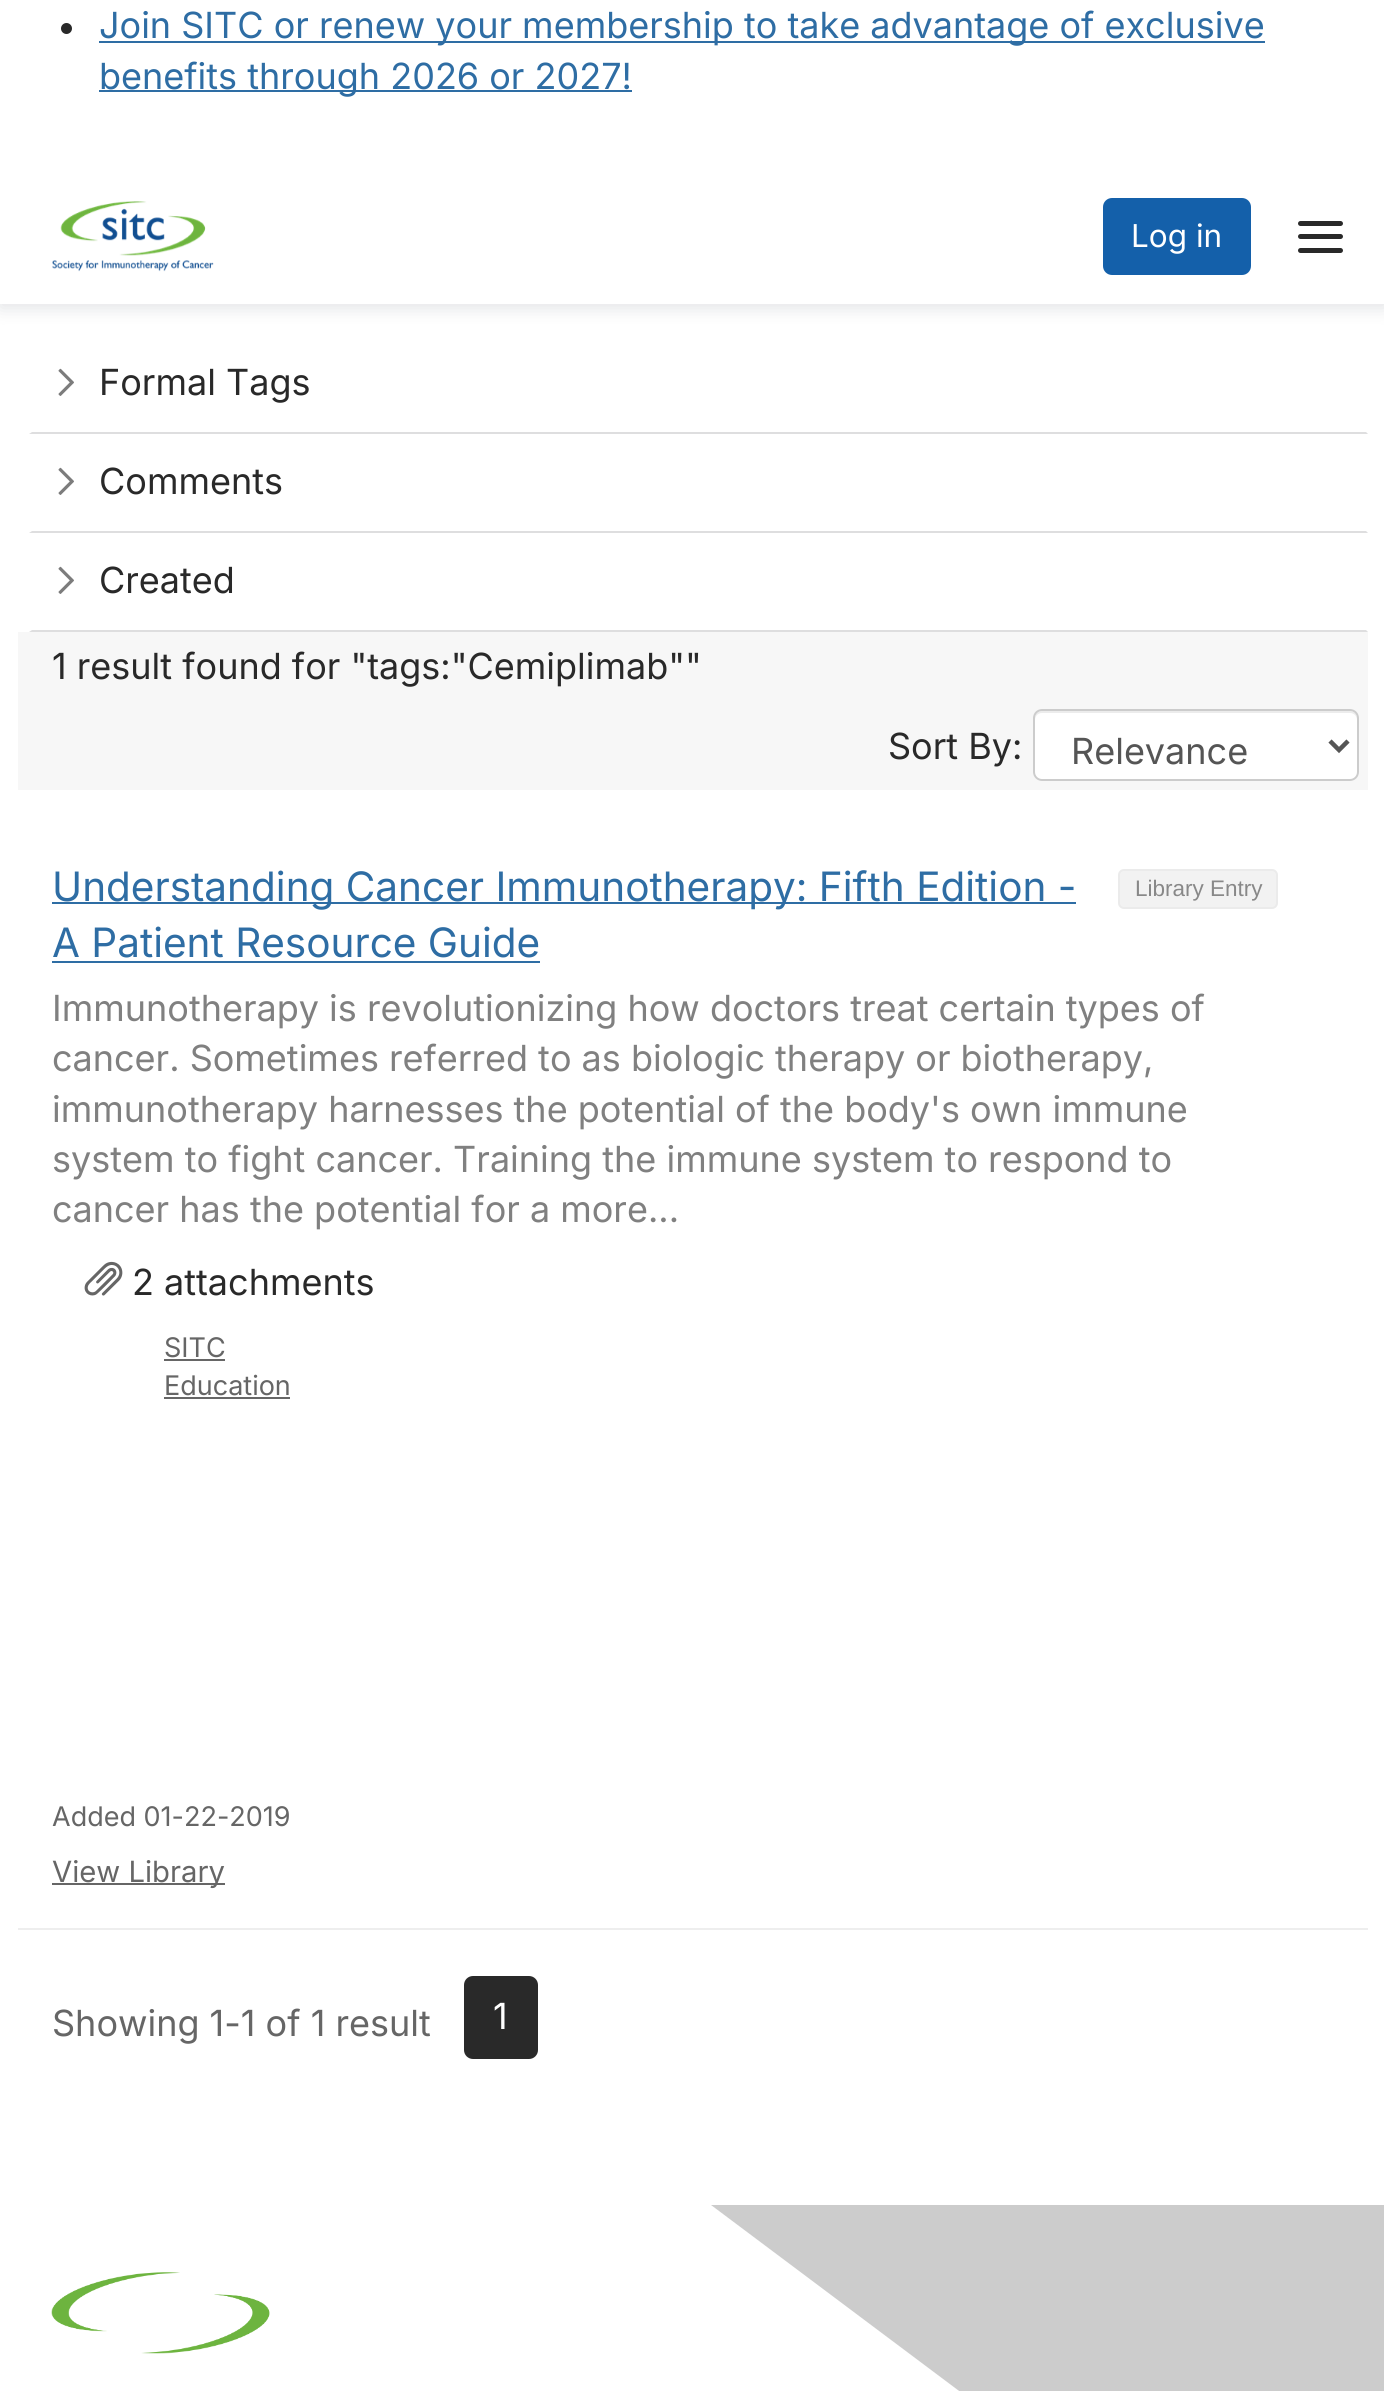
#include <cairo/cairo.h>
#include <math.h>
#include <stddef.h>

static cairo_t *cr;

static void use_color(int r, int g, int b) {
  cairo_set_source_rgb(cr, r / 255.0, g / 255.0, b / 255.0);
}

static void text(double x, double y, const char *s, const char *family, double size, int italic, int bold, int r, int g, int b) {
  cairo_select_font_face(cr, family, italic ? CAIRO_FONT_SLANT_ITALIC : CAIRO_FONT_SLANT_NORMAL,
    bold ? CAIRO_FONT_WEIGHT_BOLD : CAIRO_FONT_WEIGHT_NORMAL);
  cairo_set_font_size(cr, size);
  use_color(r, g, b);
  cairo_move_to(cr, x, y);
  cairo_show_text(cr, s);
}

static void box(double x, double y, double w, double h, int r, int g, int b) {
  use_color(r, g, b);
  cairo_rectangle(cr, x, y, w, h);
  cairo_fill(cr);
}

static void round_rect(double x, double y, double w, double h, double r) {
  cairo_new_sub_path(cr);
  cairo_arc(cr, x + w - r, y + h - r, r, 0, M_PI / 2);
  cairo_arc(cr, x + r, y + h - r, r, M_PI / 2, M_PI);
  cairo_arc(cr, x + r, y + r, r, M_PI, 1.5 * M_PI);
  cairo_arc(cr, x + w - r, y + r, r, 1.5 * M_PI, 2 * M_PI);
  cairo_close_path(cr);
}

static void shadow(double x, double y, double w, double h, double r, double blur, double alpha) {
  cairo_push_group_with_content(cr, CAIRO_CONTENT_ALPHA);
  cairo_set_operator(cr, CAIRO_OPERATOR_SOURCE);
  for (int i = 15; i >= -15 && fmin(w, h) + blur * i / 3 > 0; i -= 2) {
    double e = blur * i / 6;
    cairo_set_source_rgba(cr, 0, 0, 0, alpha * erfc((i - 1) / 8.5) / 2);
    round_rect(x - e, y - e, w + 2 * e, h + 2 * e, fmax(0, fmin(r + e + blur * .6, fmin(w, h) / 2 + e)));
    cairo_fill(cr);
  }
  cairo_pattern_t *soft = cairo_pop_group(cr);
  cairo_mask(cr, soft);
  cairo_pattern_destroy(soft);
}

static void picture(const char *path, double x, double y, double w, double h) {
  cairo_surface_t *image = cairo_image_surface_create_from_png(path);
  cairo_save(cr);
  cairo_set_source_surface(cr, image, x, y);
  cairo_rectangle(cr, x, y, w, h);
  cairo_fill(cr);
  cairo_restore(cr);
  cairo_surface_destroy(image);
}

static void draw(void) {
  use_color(255, 255, 255);
  cairo_paint(cr);
  use_color(131, 135, 145);
  shadow(0, 5, 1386, 303, 0, 9, 0.24);
  box(0, 0, 1384, 304, 255, 255, 255);
  use_color(41, 41, 41);
  cairo_arc(cr, 66.5, 28.5, 5.5, 0, 2 * M_PI);
  cairo_fill(cr);
  box(99, 41, 1166, 2, 46, 109, 164);
  box(99, 90, 533, 2, 46, 109, 164);
  picture("img_01.png", 52, 201, 162, 71);
  use_color(20, 96, 170);
  round_rect(1104, 199, 146, 75, 8);
  cairo_fill_preserve(cr);
  cairo_stroke(cr);
  use_color(41, 41, 41);
  round_rect(1298, 221, 45, 5, 2.5);
  cairo_fill(cr);
  round_rect(1298, 234, 45, 5, 2.5);
  cairo_fill(cr);
  round_rect(1298, 248, 45, 5, 2.5);
  cairo_fill(cr);
  use_color(222, 222, 223);
  cairo_new_path(cr);
  cairo_move_to(cr, 1368, 434);
  cairo_line_to(cr, 29, 434);
  cairo_line_to(cr, 32, 432);
  cairo_line_to(cr, 1366, 432);
  cairo_close_path(cr);
  cairo_fill(cr);
  picture("img_02.png", 58, 368, 16, 28);
  cairo_new_path(cr);
  cairo_move_to(cr, 1368, 533);
  cairo_line_to(cr, 29, 533);
  cairo_line_to(cr, 32, 531);
  cairo_line_to(cr, 1366, 531);
  cairo_close_path(cr);
  cairo_fill(cr);
  picture("img_02.png", 58, 467, 16, 28);
  cairo_new_path(cr);
  cairo_move_to(cr, 1368, 632);
  cairo_line_to(cr, 29, 632);
  cairo_line_to(cr, 32, 630);
  cairo_line_to(cr, 1366, 630);
  cairo_close_path(cr);
  cairo_fill(cr);
  picture("img_02.png", 58, 566, 16, 28);
  box(18, 632, 1350, 158, 247, 247, 247);
  use_color(255, 255, 255);
  round_rect(1033, 709, 326, 72, 9);
  cairo_fill(cr);
  use_color(236, 236, 236);
  cairo_new_path(cr);
  cairo_move_to(cr, 1042, 713);
  cairo_line_to(cr, 1350, 713);
  cairo_curve_to(cr, 1354, 713, 1357, 716, 1357, 720);
  cairo_line_to(cr, 1357, 718);
  cairo_curve_to(cr, 1357, 714, 1354, 711, 1350, 711);
  cairo_line_to(cr, 1042, 711);
  cairo_curve_to(cr, 1038, 711, 1035, 714, 1035, 718);
  cairo_line_to(cr, 1035, 720);
  cairo_curve_to(cr, 1035, 716, 1038, 713, 1042, 713);
  cairo_close_path(cr);
  cairo_fill(cr);
  round_rect(1034, 710, 324, 70, 8);
  use_color(204, 204, 204);
  cairo_stroke(cr);
  cairo_new_path(cr);
  cairo_move_to(cr, 1330, 741);
  cairo_line_to(cr, 1339, 750);
  cairo_line_to(cr, 1348, 741);
  use_color(85, 85, 85);
  cairo_set_line_width(cr, 4.5);
  cairo_stroke(cr);
  box(52, 902, 1024, 2, 46, 109, 164);
  use_color(242, 242, 242);
  round_rect(1119, 870, 158, 38, 5);
  cairo_fill_preserve(cr);
  use_color(235, 235, 235);
  cairo_set_line_width(cr, 2);
  cairo_stroke(cr);
  box(52, 961, 488, 2, 46, 109, 164);
  picture("img_03.png", 84, 1261, 39, 35);
  box(164, 1359, 61, 2, 102, 102, 102);
  box(164, 1397, 126, 2, 102, 102, 102);
  box(52, 1883, 173, 2, 102, 102, 102);
  box(18, 1928, 1350, 2, 238, 238, 238);
  use_color(41, 41, 41);
  round_rect(465, 1977, 72, 81, 8);
  cairo_fill_preserve(cr);
  cairo_stroke(cr);
  picture("img_04.png", 51, 2272, 219, 82);
  use_color(204, 204, 204);
  cairo_new_path(cr);
  cairo_move_to(cr, 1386, 2205);
  cairo_line_to(cr, 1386, 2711);
  cairo_line_to(cr, 711, 2205);
  cairo_close_path(cr);
  cairo_fill(cr);
  text(99, 38, "Join SITC or renew your membership to take advantage of exclusive", "Inter", 36, 0, 0, 46, 109, 164);
  text(99, 89, "benefits through 2026 or 2027!", "Inter", 36, 0, 0, 46, 109, 164);
  text(1131, 247, "Log in", "Inter", 31.5, 0, 0, 255, 255, 255);
  text(99, 395, "Formal Tags", "Inter", 36, 0, 0, 41, 41, 41);
  text(99, 494, "Comments", "Inter", 36, 0, 0, 41, 41, 41);
  text(99, 593, "Created", "Inter", 36, 0, 0, 41, 41, 41);
  text(52, 679, "1 result found for \"tags:\"Cemiplimab\"\"", "Inter", 36, 0, 0, 41, 41, 41);
  text(888, 759, "Sort By:", "Inter", 36, 0, 0, 41, 41, 41);
  text(1071, 764, "Relevance", "Inter", 36, 0, 0, 85, 85, 85);
  text(52, 901, "Understanding Cancer Immunotherapy: Fifth Edition -", "Inter", 40.5, 0, 0, 46, 109, 164);
  text(1135, 896, "Library Entry", "Liberation Sans", 22.5, 0, 0, 136, 136, 136);
  text(52, 957, "A Patient Resource Guide", "Inter", 40.5, 0, 0, 46, 109, 164);
  text(52, 1021, "Immunotherapy is revolutionizing how doctors treat certain types of", "Inter", 36, 0, 0, 128, 128, 128);
  text(52, 1071, "cancer. Sometimes referred to as biologic therapy or biotherapy,", "Inter", 36, 0, 0, 128, 128, 128);
  text(52, 1122, "immunotherapy harnesses the potential of the body's own immune", "Inter", 36, 0, 0, 128, 128, 128);
  text(52, 1172, "system to fight cancer. Training the immune system to respond to", "Inter", 36, 0, 0, 128, 128, 128);
  text(52, 1222, "cancer has the potential for a more...", "Inter", 36, 0, 0, 128, 128, 128);
  text(132, 1295, "2 attachments", "Inter", 36, 0, 0, 41, 41, 41);
  text(164, 1357, "SITC", "Inter", 27, 0, 0, 102, 102, 102);
  text(164, 1395, "Education", "Inter", 27, 0, 0, 102, 102, 102);
  text(52, 1826, "Added 01-22-2019", "Inter", 27, 0, 0, 102, 102, 102);
  text(52, 1882, "View Library", "Inter", 29.25, 0, 0, 102, 102, 102);
  text(52, 2036, "Showing 1-1 of 1 result", "Inter", 36, 0, 0, 102, 102, 102);
  text(493, 2029, "1", "Inter", 36, 0, 0, 255, 255, 255);
}

int main(void) {
  cairo_surface_t *surface = cairo_image_surface_create(CAIRO_FORMAT_RGB24, 1384, 2391);
  cr = cairo_create(surface);
  cairo_font_options_t *options = cairo_font_options_create();
  cairo_font_options_set_hint_metrics(options, CAIRO_HINT_METRICS_OFF);
  cairo_font_options_set_hint_style(options, CAIRO_HINT_STYLE_NONE);
  cairo_set_font_options(cr, options);
  cairo_set_miter_limit(cr, 4);
  draw();
  cairo_surface_write_to_png(surface, "out.png");
  cairo_font_options_destroy(options);
  cairo_destroy(cr);
  cairo_surface_destroy(surface);
  return 0;
}
